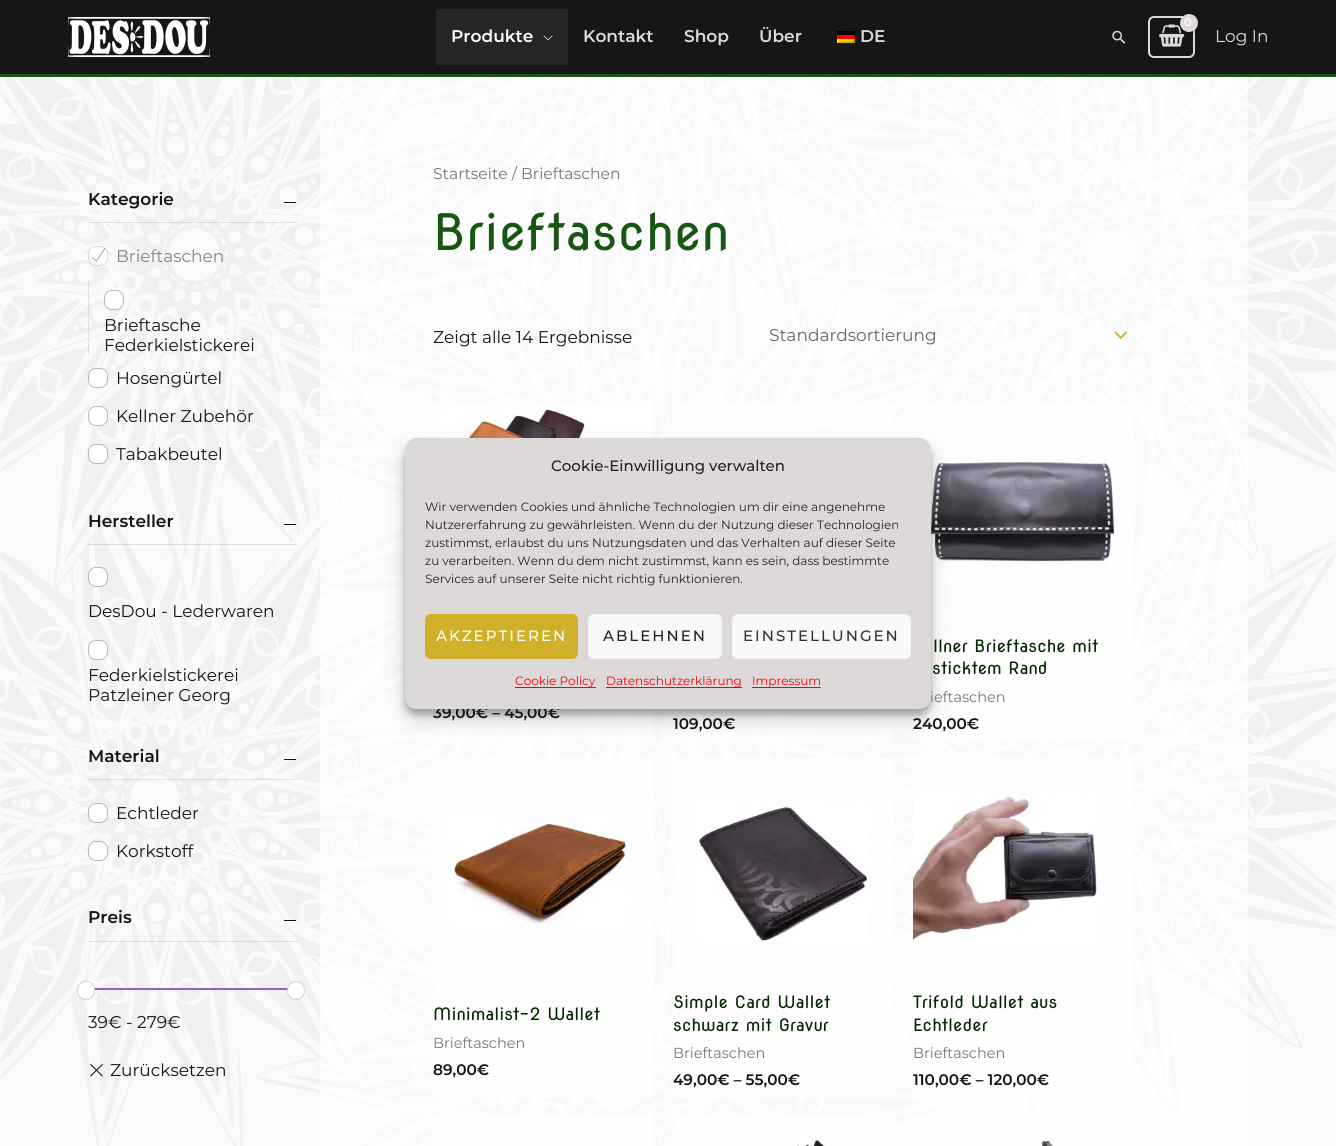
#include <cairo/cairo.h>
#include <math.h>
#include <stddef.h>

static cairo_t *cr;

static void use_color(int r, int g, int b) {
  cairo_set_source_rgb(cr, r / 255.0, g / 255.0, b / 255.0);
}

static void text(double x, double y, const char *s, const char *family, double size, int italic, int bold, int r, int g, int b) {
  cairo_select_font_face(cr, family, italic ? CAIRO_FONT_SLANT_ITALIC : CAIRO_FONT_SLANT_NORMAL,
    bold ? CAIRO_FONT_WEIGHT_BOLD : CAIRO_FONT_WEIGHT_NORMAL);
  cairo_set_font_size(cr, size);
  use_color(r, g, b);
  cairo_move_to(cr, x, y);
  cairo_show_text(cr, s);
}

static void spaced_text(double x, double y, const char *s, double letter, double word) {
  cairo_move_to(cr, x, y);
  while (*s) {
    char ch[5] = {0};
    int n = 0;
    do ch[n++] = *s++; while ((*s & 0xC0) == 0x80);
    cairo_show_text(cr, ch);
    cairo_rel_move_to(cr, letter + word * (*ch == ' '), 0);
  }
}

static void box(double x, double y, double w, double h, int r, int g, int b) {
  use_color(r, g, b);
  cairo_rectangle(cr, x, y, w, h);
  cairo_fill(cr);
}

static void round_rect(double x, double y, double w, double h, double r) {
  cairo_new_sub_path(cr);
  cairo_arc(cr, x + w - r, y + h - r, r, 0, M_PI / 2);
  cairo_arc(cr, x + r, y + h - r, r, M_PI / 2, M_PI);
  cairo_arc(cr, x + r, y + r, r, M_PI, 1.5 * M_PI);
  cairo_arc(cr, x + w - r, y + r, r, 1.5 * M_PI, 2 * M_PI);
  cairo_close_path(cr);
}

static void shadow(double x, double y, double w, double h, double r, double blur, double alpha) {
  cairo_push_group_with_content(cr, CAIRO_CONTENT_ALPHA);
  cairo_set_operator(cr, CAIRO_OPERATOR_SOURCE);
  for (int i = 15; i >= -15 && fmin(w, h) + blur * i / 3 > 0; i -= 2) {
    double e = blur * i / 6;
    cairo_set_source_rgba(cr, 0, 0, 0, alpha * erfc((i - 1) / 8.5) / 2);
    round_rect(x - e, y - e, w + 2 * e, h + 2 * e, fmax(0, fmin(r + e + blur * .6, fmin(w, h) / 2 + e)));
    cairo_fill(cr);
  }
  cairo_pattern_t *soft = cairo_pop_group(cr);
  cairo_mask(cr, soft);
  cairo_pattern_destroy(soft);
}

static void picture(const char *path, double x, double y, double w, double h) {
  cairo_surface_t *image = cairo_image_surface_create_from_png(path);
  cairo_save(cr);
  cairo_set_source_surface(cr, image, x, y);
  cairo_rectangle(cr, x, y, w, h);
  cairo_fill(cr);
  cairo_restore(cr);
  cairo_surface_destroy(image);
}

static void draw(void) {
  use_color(255, 255, 255);
  cairo_paint(cr);
  picture("img_01.png", 0, 77, 1336, 1069);
  box(0, 0, 1336, 74, 22, 22, 22);
  box(0, 74, 1336, 3, 24, 86, 20);
  picture("img_02.png", 68, 17, 142, 40);
  box(436, 9, 132, 56, 37, 37, 37);
  picture("img_03.png", 543, 35, 10, 6);
  picture("img_04.png", 837, 31, 18, 12);
  round_rect(1149, 17, 45, 40, 5);
  use_color(222, 217, 217);
  cairo_stroke(cr);
  picture("img_05.png", 1159, 24, 26, 23);
  use_color(0, 0, 0);
  shadow(1181, 15, 18, 18, 9, 1.5, 0.3);
  use_color(222, 217, 217);
  cairo_arc(cr, 1189, 23, 9, 0, 2 * M_PI);
  cairo_fill(cr);
  picture("img_06.png", 1112, 30, 14, 14);
  cairo_set_source_rgba(cr, 0, 0, 0, 0.1);
  cairo_rectangle(cr, 88, 222, 210, 1);
  cairo_fill(cr);
  box(284, 202, 12, 1, 21, 21, 21);
  cairo_set_source_rgba(cr, 1, 1, 1, 0.5);
  round_rect(88, 246, 20, 20, 8);
  cairo_fill(cr);
  round_rect(88.5, 246.5, 19, 19, 7.5);
  cairo_set_source_rgba(cr, 0.706, 0.725, 0.745, 0.5);
  cairo_set_line_width(cr, 1);
  cairo_stroke(cr);
  picture("img_07.png", 91, 247, 15, 15);
  cairo_set_source_rgba(cr, 0, 0, 0, 0.1);
  cairo_rectangle(cr, 88, 281, 1, 74);
  cairo_fill(cr);
  use_color(255, 255, 255);
  round_rect(104.5, 290.5, 19, 19, 7.5);
  cairo_fill_preserve(cr);
  use_color(180, 185, 190);
  cairo_stroke(cr);
  use_color(255, 255, 255);
  round_rect(88.5, 368.5, 19, 19, 7.5);
  cairo_fill_preserve(cr);
  use_color(180, 185, 190);
  cairo_stroke(cr);
  use_color(255, 255, 255);
  round_rect(88.5, 406.5, 19, 19, 7.5);
  cairo_fill_preserve(cr);
  use_color(180, 185, 190);
  cairo_stroke(cr);
  use_color(255, 255, 255);
  round_rect(88.5, 444.5, 19, 19, 7.5);
  cairo_fill_preserve(cr);
  use_color(180, 185, 190);
  cairo_stroke(cr);
  cairo_set_source_rgba(cr, 0, 0, 0, 0.1);
  cairo_rectangle(cr, 88, 544, 210, 1);
  cairo_fill(cr);
  box(284, 524, 12, 1, 21, 21, 21);
  use_color(255, 255, 255);
  round_rect(88.5, 567.5, 19, 19, 7.5);
  cairo_fill_preserve(cr);
  use_color(180, 185, 190);
  cairo_stroke(cr);
  use_color(255, 255, 255);
  round_rect(88.5, 640.5, 19, 19, 7.5);
  cairo_fill_preserve(cr);
  use_color(180, 185, 190);
  cairo_stroke(cr);
  cairo_set_source_rgba(cr, 0, 0, 0, 0.1);
  cairo_rectangle(cr, 88, 779, 210, 1);
  cairo_fill(cr);
  box(284, 759, 12, 1, 21, 21, 21);
  use_color(255, 255, 255);
  round_rect(88.5, 803.5, 19, 19, 7.5);
  cairo_fill_preserve(cr);
  use_color(180, 185, 190);
  cairo_stroke(cr);
  use_color(255, 255, 255);
  round_rect(88.5, 841.5, 19, 19, 7.5);
  cairo_fill_preserve(cr);
  use_color(180, 185, 190);
  cairo_stroke(cr);
  cairo_set_source_rgba(cr, 0, 0, 0, 0.1);
  cairo_rectangle(cr, 88, 941, 210, 1);
  cairo_fill(cr);
  box(284, 920, 12, 1, 21, 21, 21);
  box(88, 988, 200, 2, 151, 93, 195);
  use_color(255, 255, 255);
  round_rect(77.5, 981.5, 17, 18, 8.5);
  cairo_fill_preserve(cr);
  use_color(211, 211, 211);
  cairo_stroke(cr);
  use_color(255, 255, 255);
  round_rect(287.5, 981.5, 17, 18, 8.5);
  cairo_fill_preserve(cr);
  use_color(211, 211, 211);
  cairo_stroke(cr);
  use_color(21, 21, 21);
  cairo_new_path(cr);
  cairo_move_to(cr, 90, 1076);
  cairo_line_to(cr, 102, 1064);
  cairo_line_to(cr, 103, 1064.5);
  cairo_line_to(cr, 91, 1076.5);
  cairo_close_path(cr);
  cairo_fill(cr);
  cairo_new_path(cr);
  cairo_move_to(cr, 91, 1064);
  cairo_line_to(cr, 103, 1076);
  cairo_line_to(cr, 102, 1076.5);
  cairo_line_to(cr, 90, 1064.5);
  cairo_close_path(cr);
  cairo_fill(cr);
  cairo_set_source_rgba(cr, 1, 1, 1, 0.62);
  cairo_rectangle(cr, 320, 77, 928, 1069);
  cairo_fill(cr);
  picture("img_08.png", 1114, 331, 13, 8);
  cairo_rectangle(cr, 433, 402, 220, 339);
  cairo_fill(cr);
  picture("img_09.png", 444, 409, 206, 29);
  cairo_rectangle(cr, 913, 402, 220, 339);
  cairo_fill(cr);
  picture("img_10.png", 931, 460, 184, 103);
  cairo_rectangle(cr, 673, 402, 220, 339);
  cairo_fill(cr);
  cairo_rectangle(cr, 433, 758, 220, 340);
  cairo_fill(cr);
  picture("img_11.png", 451, 822, 176, 103);
  cairo_rectangle(cr, 673, 758, 220, 340);
  cairo_fill(cr);
  picture("img_12.png", 699, 806, 169, 135);
  cairo_rectangle(cr, 913, 758, 220, 340);
  cairo_fill(cr);
  picture("img_13.png", 913, 796, 185, 147);
  cairo_rectangle(cr, 433, 1115, 220, 31);
  cairo_fill(cr);
  cairo_rectangle(cr, 673, 1115, 220, 31);
  cairo_fill(cr);
  picture("img_14.png", 797, 1140, 28, 6);
  cairo_rectangle(cr, 913, 1115, 131, 19);
  cairo_fill(cr);
  picture("img_15.png", 1040, 1138, 14, 8);
  use_color(0, 0, 0);
  shadow(405, 444, 526, 271, 12, 3, 0.23);
  shadow(405, 448, 526, 271, 12, 10, 0.19);
  text(451, 42, "Produkte", "Montserrat SemiBold", 17, 0, 0, 254, 254, 254);
  text(583, 42, "Kontakt", "Montserrat SemiBold", 17, 0, 0, 222, 217, 217);
  text(684, 42, "Shop", "Montserrat SemiBold", 17, 0, 0, 222, 217, 217);
  text(759, 42, "Über", "Montserrat SemiBold", 17, 0, 0, 222, 217, 217);
  text(860, 42, "DE", "Montserrat SemiBold", 17, 0, 0, 222, 217, 217);
  text(1184, 26, "0", "Montserrat SemiBold", 11, 0, 0, 254, 254, 254);
  text(1215, 42, "Log In", "Montserrat", 17, 0, 0, 222, 217, 217);
  text(88, 205, "Kategorie", "Montserrat SemiBold", 17, 0, 0, 21, 21, 21);
  text(116, 262, "Brieftaschen", "Montserrat", 17, 0, 0, 133, 133, 133);
  text(104, 331, "Brieftasche", "Montserrat", 17, 0, 0, 21, 21, 21);
  text(104, 351, "Federkielstickerei", "Montserrat", 17, 0, 0, 21, 21, 21);
  text(116, 384, "Hosengürtel", "Montserrat", 17, 0, 0, 21, 21, 21);
  text(116, 422, "Kellner Zubehör", "Montserrat", 17, 0, 0, 21, 21, 21);
  text(116, 460, "Tabakbeutel", "Montserrat", 17, 0, 0, 21, 21, 21);
  text(88, 527, "Hersteller", "Montserrat SemiBold", 17, 0, 0, 21, 21, 21);
  text(88, 617, "DesDou - Lederwaren", "Montserrat", 17, 0, 0, 21, 21, 21);
  text(88, 681, "Federkielstickerei", "Montserrat", 17, 0, 0, 21, 21, 21);
  text(88, 701, "Patzleiner Georg", "Montserrat", 17, 0, 0, 21, 21, 21);
  text(88, 762, "Material", "Montserrat SemiBold", 17, 0, 0, 21, 21, 21);
  text(116, 819, "Echtleder", "Montserrat", 17, 0, 0, 21, 21, 21);
  text(116, 857, "Korkstoff", "Montserrat", 17, 0, 0, 21, 21, 21);
  text(88, 923, "Preis", "Montserrat SemiBold", 17, 0, 0, 21, 21, 21);
  text(88, 1028, "39€ - 279€", "Montserrat", 17, 0, 0, 21, 21, 21);
  text(110, 1076, "Zurücksetzen", "Montserrat", 17, 0, 0, 21, 21, 21);
  text(433, 179, "Startseite / Brieftaschen", "Montserrat", 15.6, 0, 0, 119, 119, 119);
  text(433, 250, "Brieftaschen", "Nova Round", 50, 0, 0, 24, 86, 20);
  text(433, 343, "Zeigt alle 14 Ergebnisse", "Montserrat", 17, 0, 0, 21, 21, 21);
  text(769, 341, "Standardsortierung", "Montserrat", 17, 0, 0, 102, 102, 102);
  text(433, 718, "39,00€ – 45,00€", "Montserrat SemiBold", 15.25, 0, 0, 21, 21, 21);
  text(933, 652, "llner Brieftasche mit", "Nova Round", 17, 0, 0, 2, 39, 0);
  text(932, 674, "sticktem Rand", "Nova Round", 17, 0, 0, 2, 39, 0);
  text(930, 702, "ieftaschen", "Montserrat", 14.5, 0, 0, 119, 119, 119);
  text(913, 729, "240,00€", "Montserrat SemiBold", 15.25, 0, 0, 21, 21, 21);
  text(673, 729, "109,00€", "Montserrat SemiBold", 15.25, 0, 0, 21, 21, 21);
  text(433, 1020, "Minimalist-2 Wallet", "Nova Round", 17, 0, 0, 2, 39, 0);
  text(433, 1048, "Brieftaschen", "Montserrat", 14.5, 0, 0, 119, 119, 119);
  text(433, 1075, "89,00€", "Montserrat SemiBold", 15.25, 0, 0, 21, 21, 21);
  text(673, 1008, "Simple Card Wallet", "Nova Round", 17, 0, 0, 2, 39, 0);
  text(673, 1031, "schwarz mit Gravur", "Nova Round", 17, 0, 0, 2, 39, 0);
  text(673, 1058, "Brieftaschen", "Montserrat", 14.5, 0, 0, 119, 119, 119);
  text(673, 1085, "49,00€ – 55,00€", "Montserrat SemiBold", 15.25, 0, 0, 21, 21, 21);
  text(913, 1008, "Trifold Wallet aus", "Nova Round", 17, 0, 0, 2, 39, 0);
  text(913, 1031, "Echtleder", "Nova Round", 17, 0, 0, 2, 39, 0);
  text(913, 1058, "Brieftaschen", "Montserrat", 14.5, 0, 0, 119, 119, 119);
  text(913, 1085, "110,00€ – 120,00€", "Montserrat SemiBold", 15.25, 0, 0, 21, 21, 21);
  use_color(222, 217, 217);
  round_rect(405, 438, 526, 271, 12);
  cairo_fill(cr);
  text(551, 471, "Cookie-Einwilligung verwalten", "Montserrat Medium", 15, 0, 0, 34, 34, 34);
  text(425, 511, "Wir verwenden Cookies und ähnliche Technologien um dir eine angenehme", "Montserrat", 12, 0, 0, 34, 34, 34);
  text(425, 529, "Nutzererfahrung zu gewährleisten. Wenn du der Nutzung dieser Technologien", "Montserrat", 12, 0, 0, 34, 34, 34);
  text(425, 547, "zustimmst, erlaubst du uns Nutzungsdaten und das Verhalten auf dieser Seite", "Montserrat", 12, 0, 0, 34, 34, 34);
  text(425, 565, "zu verarbeiten. Wenn du dem nicht zustimmst, kann es sein, dass bestimmte", "Montserrat", 12, 0, 0, 34, 34, 34);
  text(425, 583, "Services auf unserer Seite nicht richtig funktionieren.", "Montserrat", 12, 0, 0, 34, 34, 34);
  use_color(209, 176, 41);
  round_rect(425.5, 614.5, 152, 44, 5.5);
  cairo_fill_preserve(cr);
  cairo_stroke(cr);
  cairo_select_font_face(cr, "Montserrat Medium", CAIRO_FONT_SLANT_NORMAL, CAIRO_FONT_WEIGHT_NORMAL);
  cairo_set_font_size(cr, 15);
  use_color(254, 254, 254);
  spaced_text(436, 641, "AKZEPTIEREN", 2, 0);
  use_color(249, 249, 249);
  round_rect(588.5, 614.5, 133, 44, 5.5);
  cairo_fill_preserve(cr);
  use_color(242, 242, 242);
  cairo_stroke(cr);
  use_color(34, 34, 34);
  spaced_text(603, 641, "ABLEHNEN", 2, 0);
  use_color(249, 249, 249);
  round_rect(732.5, 614.5, 178, 44, 5.5);
  cairo_fill_preserve(cr);
  use_color(242, 242, 242);
  cairo_stroke(cr);
  use_color(51, 51, 51);
  spaced_text(743, 641, "EINSTELLUNGEN", 2, 0);
  box(515, 687, 81, 1, 250, 0, 0);
  text(515, 685, "Cookie Policy", "Montserrat", 12, 0, 0, 250, 0, 0);
  box(606, 687, 136, 1, 250, 0, 0);
  text(606, 685, "Datenschutzerklärung", "Montserrat", 12, 0, 0, 250, 0, 0);
  box(752, 687, 69, 1, 250, 0, 0);
  text(752, 685, "Impressum", "Montserrat", 12, 0, 0, 250, 0, 0);
}

int main(void) {
  cairo_surface_t *surface = cairo_image_surface_create(CAIRO_FORMAT_RGB24, 1336, 1146);
  cr = cairo_create(surface);
  cairo_font_options_t *options = cairo_font_options_create();
  cairo_font_options_set_hint_metrics(options, CAIRO_HINT_METRICS_OFF);
  cairo_font_options_set_hint_style(options, CAIRO_HINT_STYLE_NONE);
  cairo_set_font_options(cr, options);
  cairo_set_miter_limit(cr, 4);
  draw();
  cairo_surface_write_to_png(surface, "out.png");
  cairo_font_options_destroy(options);
  cairo_destroy(cr);
  cairo_surface_destroy(surface);
  return 0;
}
